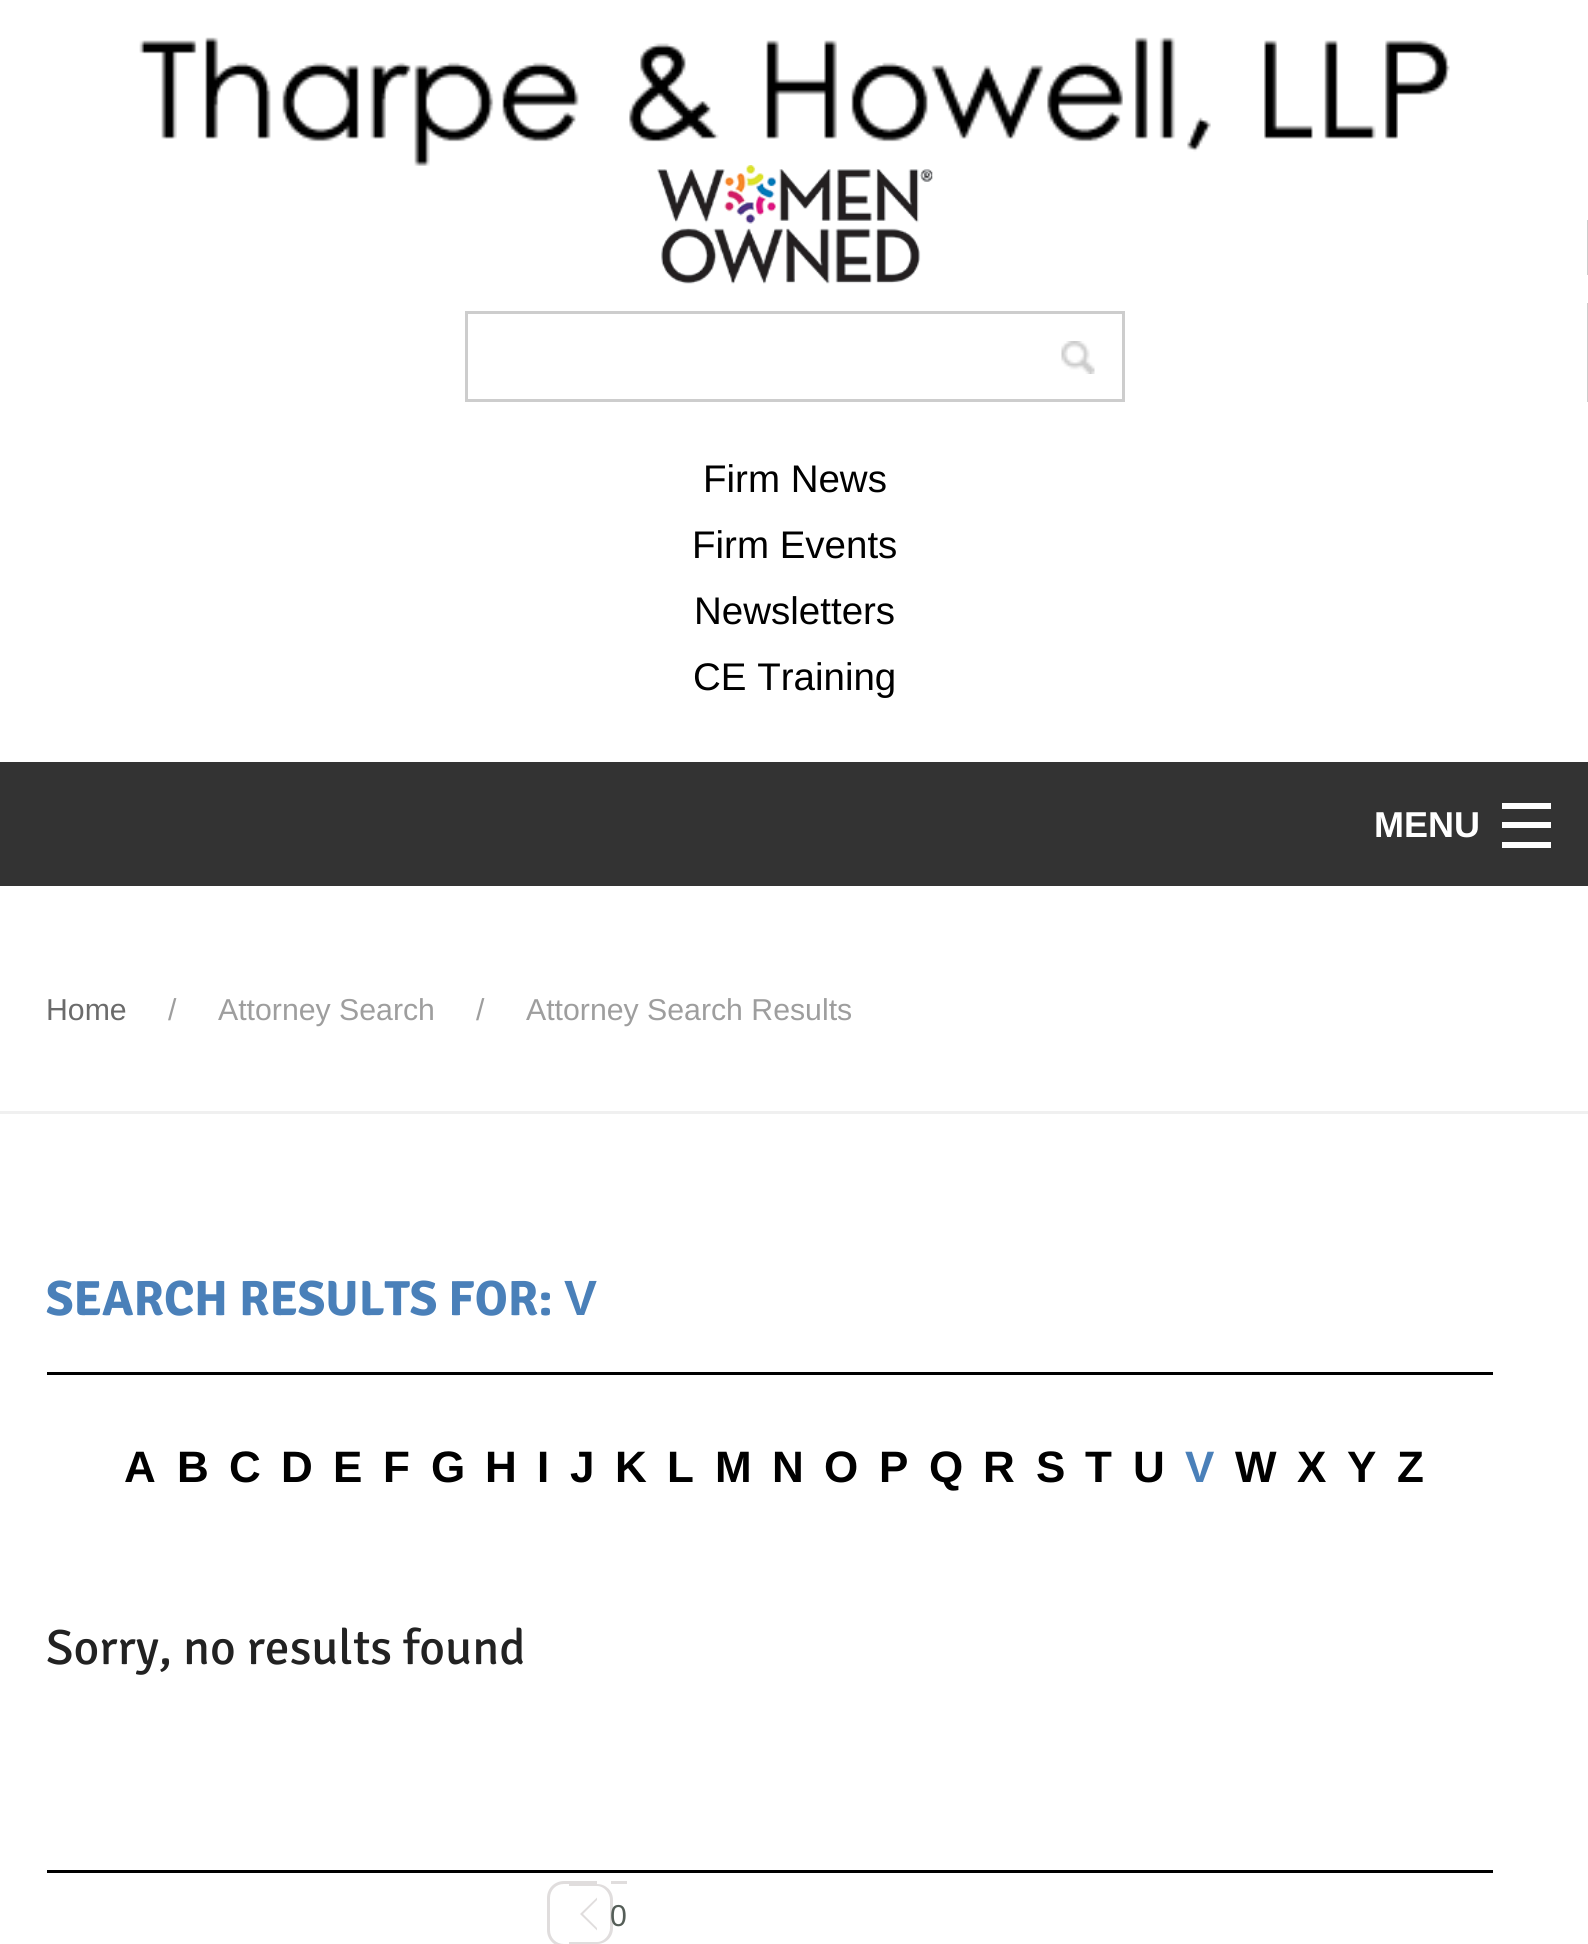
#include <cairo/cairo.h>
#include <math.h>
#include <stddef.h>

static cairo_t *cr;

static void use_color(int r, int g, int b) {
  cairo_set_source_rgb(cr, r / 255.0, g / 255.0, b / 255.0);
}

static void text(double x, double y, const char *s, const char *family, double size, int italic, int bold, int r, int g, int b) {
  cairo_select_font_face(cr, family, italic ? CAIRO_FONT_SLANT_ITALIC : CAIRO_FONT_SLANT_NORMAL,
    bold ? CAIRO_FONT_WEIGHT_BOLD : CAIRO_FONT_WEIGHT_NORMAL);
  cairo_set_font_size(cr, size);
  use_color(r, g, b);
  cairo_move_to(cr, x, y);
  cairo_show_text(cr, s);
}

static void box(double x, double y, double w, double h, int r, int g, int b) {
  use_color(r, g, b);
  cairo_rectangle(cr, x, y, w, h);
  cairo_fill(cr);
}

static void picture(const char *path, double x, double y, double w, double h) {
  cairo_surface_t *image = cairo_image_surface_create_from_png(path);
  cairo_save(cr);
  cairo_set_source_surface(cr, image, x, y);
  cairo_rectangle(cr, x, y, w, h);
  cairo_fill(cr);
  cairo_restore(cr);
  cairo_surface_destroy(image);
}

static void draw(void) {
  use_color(255, 255, 255);
  cairo_paint(cr);
  picture("img_01.png", 139, 37, 1311, 129);
  picture("img_02.png", 657, 165, 276, 119);
  box(1587, 220, 1, 55, 205, 205, 205);
  box(1587, 303, 1, 99, 205, 205, 205);
  picture("img_03.png", 1061, 341, 34, 33);
  cairo_rectangle(cr, 466.5, 312.5, 657, 88);
  cairo_set_line_width(cr, 3);
  cairo_stroke(cr);
  box(0, 762, 1588, 124, 51, 51, 51);
  box(1502, 842, 49, 6, 255, 255, 255);
  box(1502, 822, 49, 6, 255, 255, 255);
  box(1502, 803, 49, 6, 255, 255, 255);
  box(0, 1111, 1588, 3, 240, 240, 240);
  box(47, 1372, 1446, 3, 0, 0, 0);
  box(47, 1870, 1446, 3, 0, 0, 0);
  use_color(224, 221, 221);
  cairo_set_fill_rule(cr, CAIRO_FILL_RULE_EVEN_ODD);
  cairo_new_path(cr);
  cairo_move_to(cr, 564, 1881);
  cairo_line_to(cr, 597, 1881);
  cairo_line_to(cr, 597, 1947);
  cairo_line_to(cr, 564, 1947);
  cairo_curve_to(cr, 555, 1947, 547, 1940, 547, 1930);
  cairo_line_to(cr, 547, 1898);
  cairo_curve_to(cr, 547, 1888, 555, 1881, 564, 1881);
  cairo_close_path(cr);
  cairo_move_to(cr, 564, 1884);
  cairo_line_to(cr, 597, 1884);
  cairo_line_to(cr, 597, 1944);
  cairo_line_to(cr, 564, 1944);
  cairo_curve_to(cr, 556, 1944, 550, 1938, 550, 1930);
  cairo_line_to(cr, 550, 1898);
  cairo_curve_to(cr, 550, 1890, 556, 1884, 564, 1884);
  cairo_close_path(cr);
  cairo_fill(cr);
  box(611, 1881, 16, 3, 224, 221, 221);
  cairo_new_path(cr);
  cairo_move_to(cr, 569, 1884);
  cairo_line_to(cr, 597, 1884);
  cairo_curve_to(cr, 606, 1884, 613, 1891, 613, 1900);
  cairo_line_to(cr, 613, 1928);
  cairo_curve_to(cr, 613, 1937, 606, 1944, 597, 1944);
  cairo_line_to(cr, 569, 1944);
  cairo_close_path(cr);
  cairo_move_to(cr, 569, 1886);
  cairo_line_to(cr, 597, 1886);
  cairo_curve_to(cr, 604, 1886, 610, 1893, 610, 1900);
  cairo_line_to(cr, 610, 1928);
  cairo_curve_to(cr, 610, 1935, 604, 1942, 597, 1942);
  cairo_line_to(cr, 569, 1942);
  cairo_close_path(cr);
  cairo_fill(cr);
  cairo_set_fill_rule(cr, CAIRO_FILL_RULE_WINDING);
  cairo_new_path(cr);
  cairo_move_to(cr, 597, 1897.5);
  cairo_line_to(cr, 597, 1930.5);
  cairo_line_to(cr, 580, 1914);
  cairo_close_path(cr);
  cairo_fill(cr);
  use_color(255, 255, 255);
  cairo_new_path(cr);
  cairo_move_to(cr, 597, 1900);
  cairo_line_to(cr, 597, 1928);
  cairo_line_to(cr, 583, 1914);
  cairo_close_path(cr);
  cairo_fill(cr);
  text(703, 492, "Firm News", "Liberation Sans", 38.5, 0, 0, 0, 0, 0);
  text(692, 558, "Firm Events", "Liberation Sans", 38.5, 0, 0, 0, 0, 0);
  text(694, 624, "Newsletters", "Liberation Sans", 38.5, 0, 0, 0, 0, 0);
  text(693, 690, "CE Training", "Liberation Sans", 38.5, 0, 0, 0, 0, 0);
  text(1374, 837, "MENU", "Liberation Sans", 36, 0, 1, 255, 255, 255);
  text(46, 1020, "Home", "Liberation Sans", 30.25, 0, 0, 107, 107, 107);
  text(168, 1020, "/", "Liberation Sans", 30.25, 0, 0, 158, 158, 158);
  text(218, 1020, "Attorney Search", "Liberation Sans", 30.25, 0, 0, 158, 158, 158);
  text(476, 1020, "/", "Liberation Sans", 30.25, 0, 0, 158, 158, 158);
  text(526, 1020, "Attorney Search Results", "Liberation Sans", 30.25, 0, 0, 158, 158, 158);
  text(46, 1315, "SEARCH RESULTS FOR:", "Signika", 49.5, 0, 1, 74, 128, 185);
  text(564, 1315, "V", "Liberation Sans", 49.5, 0, 1, 74, 128, 185);
  text(124, 1482, "A", "Liberation Sans", 44, 0, 1, 0, 0, 0);
  text(177, 1482, "B", "Liberation Sans", 44, 0, 1, 0, 0, 0);
  text(229, 1482, "C", "Liberation Sans", 44, 0, 1, 0, 0, 0);
  text(281, 1482, "D", "Liberation Sans", 44, 0, 1, 0, 0, 0);
  text(333, 1482, "E", "Liberation Sans", 44, 0, 1, 0, 0, 0);
  text(383, 1482, "F", "Liberation Sans", 44, 0, 1, 0, 0, 0);
  text(431, 1482, "G", "Liberation Sans", 44, 0, 1, 0, 0, 0);
  text(485, 1482, "H", "Liberation Sans", 44, 0, 1, 0, 0, 0);
  text(537, 1482, "I", "Liberation Sans", 44, 0, 1, 0, 0, 0);
  text(570, 1482, "J", "Liberation Sans", 44, 0, 1, 0, 0, 0);
  text(615, 1482, "K", "Liberation Sans", 44, 0, 1, 0, 0, 0);
  text(667, 1482, "L", "Liberation Sans", 44, 0, 1, 0, 0, 0);
  text(715, 1482, "M", "Liberation Sans", 44, 0, 1, 0, 0, 0);
  text(772, 1482, "N", "Liberation Sans", 44, 0, 1, 0, 0, 0);
  text(824, 1482, "O", "Liberation Sans", 44, 0, 1, 0, 0, 0);
  text(879, 1482, "P", "Liberation Sans", 44, 0, 1, 0, 0, 0);
  text(929, 1482, "Q", "Liberation Sans", 44, 0, 1, 0, 0, 0);
  text(983, 1482, "R", "Liberation Sans", 44, 0, 1, 0, 0, 0);
  text(1036, 1482, "S", "Liberation Sans", 44, 0, 1, 0, 0, 0);
  text(1085, 1482, "T", "Liberation Sans", 44, 0, 1, 0, 0, 0);
  text(1133, 1482, "U", "Liberation Sans", 44, 0, 1, 0, 0, 0);
  text(1185, 1482, "V", "Liberation Sans", 44, 0, 1, 74, 128, 185);
  text(1235, 1482, "W", "Liberation Sans", 44, 0, 1, 0, 0, 0);
  text(1297, 1482, "X", "Liberation Sans", 44, 0, 1, 0, 0, 0);
  text(1347, 1482, "Y", "Liberation Sans", 44, 0, 1, 0, 0, 0);
  text(1397, 1482, "Z", "Liberation Sans", 44, 0, 1, 0, 0, 0);
  text(46, 1664, "Sorry, no results found", "Signika", 49.5, 0, 0, 34, 34, 34);
  text(610, 1926, "0", "Liberation Sans", 30.25, 0, 0, 85, 94, 88);
}

int main(void) {
  cairo_surface_t *surface = cairo_image_surface_create(CAIRO_FORMAT_RGB24, 1588, 1944);
  cr = cairo_create(surface);
  cairo_font_options_t *options = cairo_font_options_create();
  cairo_font_options_set_hint_metrics(options, CAIRO_HINT_METRICS_OFF);
  cairo_font_options_set_hint_style(options, CAIRO_HINT_STYLE_NONE);
  cairo_set_font_options(cr, options);
  cairo_set_miter_limit(cr, 4);
  draw();
  cairo_surface_write_to_png(surface, "out.png");
  cairo_font_options_destroy(options);
  cairo_destroy(cr);
  cairo_surface_destroy(surface);
  return 0;
}
